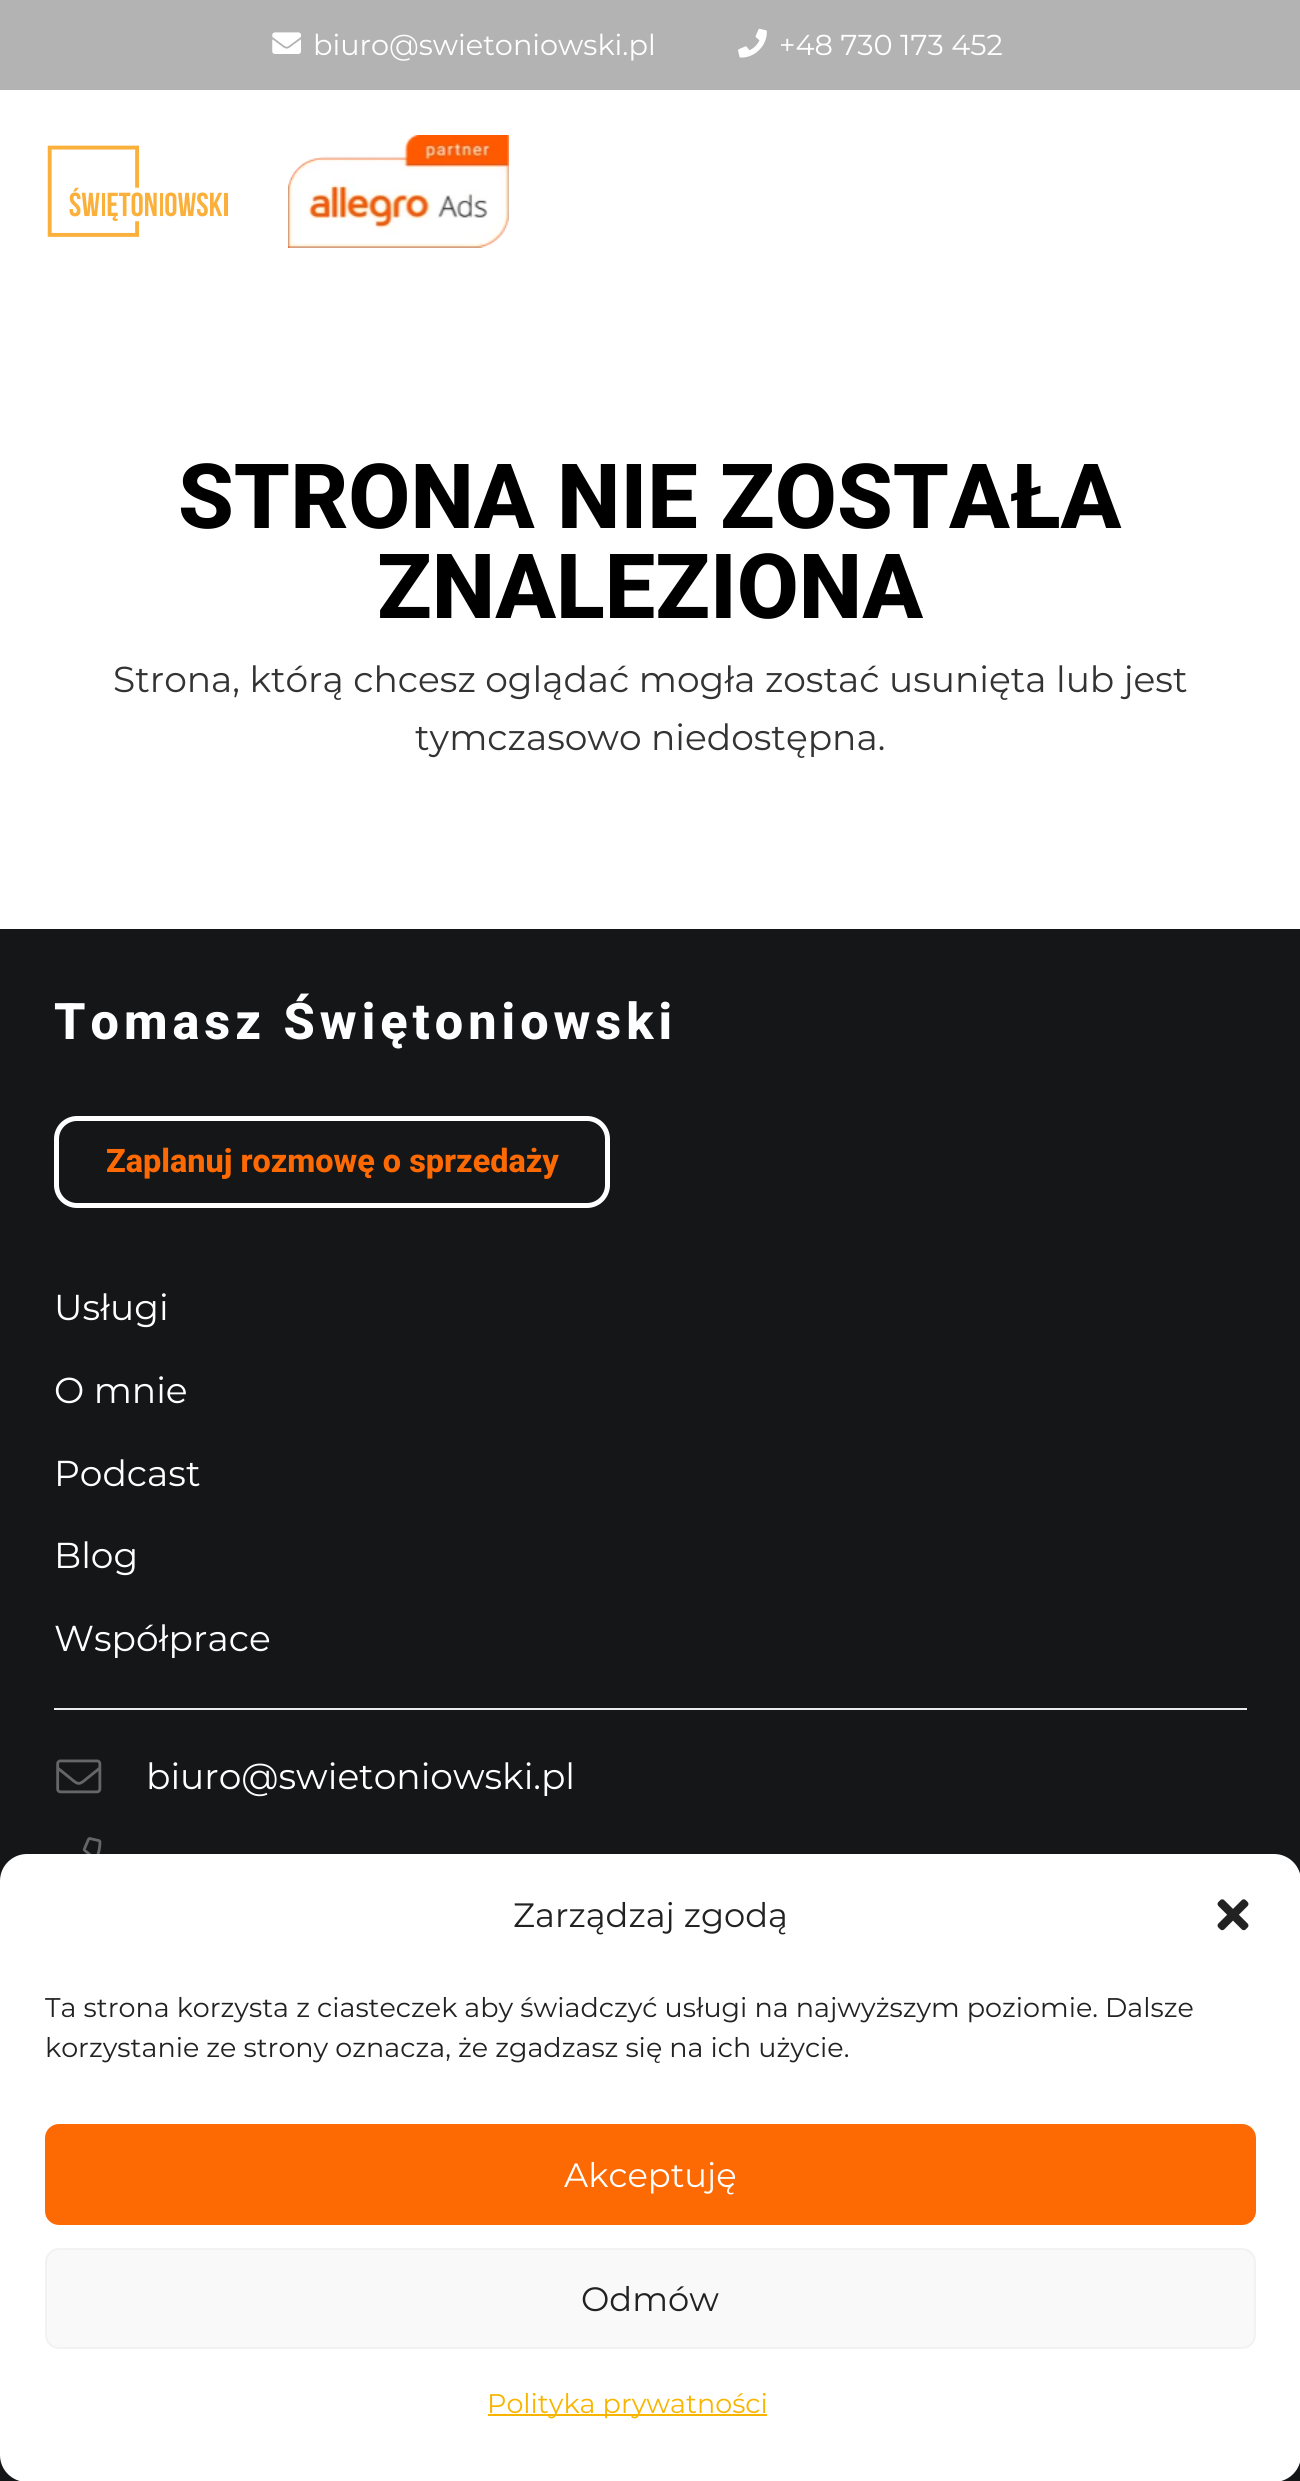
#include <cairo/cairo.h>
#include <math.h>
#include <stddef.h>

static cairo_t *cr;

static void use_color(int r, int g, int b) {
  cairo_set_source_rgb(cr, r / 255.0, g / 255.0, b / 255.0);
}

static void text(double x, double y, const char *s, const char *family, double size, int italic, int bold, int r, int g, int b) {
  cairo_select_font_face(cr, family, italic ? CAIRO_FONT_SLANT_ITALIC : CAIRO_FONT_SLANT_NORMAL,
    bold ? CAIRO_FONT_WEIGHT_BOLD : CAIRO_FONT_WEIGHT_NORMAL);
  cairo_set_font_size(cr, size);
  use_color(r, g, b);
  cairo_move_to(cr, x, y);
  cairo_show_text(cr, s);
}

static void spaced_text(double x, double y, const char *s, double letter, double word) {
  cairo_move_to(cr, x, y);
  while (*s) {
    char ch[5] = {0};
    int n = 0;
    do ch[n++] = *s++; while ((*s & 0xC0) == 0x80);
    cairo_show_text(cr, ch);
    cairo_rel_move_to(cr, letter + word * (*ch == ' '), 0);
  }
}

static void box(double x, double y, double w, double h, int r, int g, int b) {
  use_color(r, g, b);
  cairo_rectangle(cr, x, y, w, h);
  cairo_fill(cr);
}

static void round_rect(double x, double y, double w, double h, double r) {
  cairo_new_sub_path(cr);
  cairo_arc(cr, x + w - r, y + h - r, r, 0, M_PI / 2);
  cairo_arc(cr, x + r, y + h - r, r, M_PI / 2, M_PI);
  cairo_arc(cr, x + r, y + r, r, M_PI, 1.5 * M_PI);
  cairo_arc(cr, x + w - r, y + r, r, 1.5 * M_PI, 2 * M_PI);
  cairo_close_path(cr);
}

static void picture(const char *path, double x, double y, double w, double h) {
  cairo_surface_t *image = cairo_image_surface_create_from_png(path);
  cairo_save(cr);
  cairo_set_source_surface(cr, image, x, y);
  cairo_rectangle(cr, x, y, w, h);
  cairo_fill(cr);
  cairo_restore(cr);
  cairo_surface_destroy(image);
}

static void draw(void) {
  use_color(255, 255, 255);
  cairo_paint(cr);
  box(0, 0, 1300, 90, 179, 179, 179);
  picture("img_01.png", 272, 32, 29, 22);
  picture("img_02.png", 738, 28, 29, 30);
  picture("img_03.png", 47, 145, 181, 92);
  picture("img_04.png", 288, 135, 221, 113);
  box(0, 929, 1300, 1552, 20, 22, 24);
  round_rect(56.5, 1118.5, 551, 87, 20.5);
  use_color(255, 255, 255);
  cairo_set_line_width(cr, 5);
  cairo_stroke(cr);
  box(54, 1708, 1193, 2, 235, 235, 235);
  picture("img_05.png", 56, 1759, 46, 35);
  picture("img_06.png", 82, 1837, 20, 17);
  use_color(255, 255, 255);
  round_rect(0, 1854, 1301, 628, 27);
  cairo_fill(cr);
  picture("img_07.png", 1217, 1899, 32, 32);
  use_color(253, 105, 2);
  round_rect(46, 2125, 1209, 99, 13);
  cairo_fill_preserve(cr);
  cairo_set_line_width(cr, 2);
  cairo_stroke(cr);
  use_color(249, 249, 249);
  round_rect(46, 2249, 1209, 99, 13);
  cairo_fill_preserve(cr);
  use_color(242, 242, 242);
  cairo_stroke(cr);
  box(488, 2414, 279, 2, 248, 181, 0);
  text(313, 55, "biuro@swietoniowski.pl", "Montserrat", 28.75, 0, 0, 255, 255, 255);
  text(779, 55, "+48 730 173 452", "Montserrat", 28.75, 0, 0, 255, 255, 255);
  text(178, 528, "STRONA NIE ZOSTAŁA", "Roboto ExtraBold", 90, 0, 0, 0, 0, 0);
  text(377, 618, "ZNALEZIONA", "Roboto ExtraBold", 90, 0, 0, 0, 0, 0);
  text(113, 692, "Strona, którą chcesz oglądać mogła zostać usunięta lub jest", "Montserrat", 36, 0, 0, 51, 51, 51);
  text(415, 750, "tymczasowo niedostępna.", "Montserrat", 36, 0, 0, 51, 51, 51);
  cairo_select_font_face(cr, "Roboto ExtraBold", CAIRO_FONT_SLANT_NORMAL, CAIRO_FONT_WEIGHT_NORMAL);
  cairo_set_font_size(cr, 50.4);
  use_color(255, 255, 255);
  spaced_text(54, 1039, "Tomasz Świętoniowski", 5, 0);
  text(106, 1172, "Zaplanuj rozmowę o sprzedaży", "Roboto ExtraBold", 32.4, 0, 0, 253, 105, 2);
  text(54, 1320, "Usługi", "Montserrat", 36, 0, 0, 255, 255, 255);
  text(54, 1403, "O mnie", "Montserrat", 36, 0, 0, 255, 255, 255);
  text(54, 1486, "Podcast", "Montserrat", 36, 0, 0, 255, 255, 255);
  text(54, 1568, "Blog", "Montserrat", 36, 0, 0, 255, 255, 255);
  text(54, 1651, "Współprace", "Montserrat", 36, 0, 0, 255, 255, 255);
  text(146, 1789, "biuro@swietoniowski.pl", "Montserrat", 36, 0, 0, 255, 255, 255);
  text(513, 1927, "Zarządzaj zgodą", "Montserrat", 33.75, 0, 0, 34, 34, 34);
  text(45, 2017, "Ta strona korzysta z ciasteczek aby świadczyć usługi na najwyższym poziomie. Dalsze", "Montserrat", 27, 0, 0, 34, 34, 34);
  text(45, 2057, "korzystanie ze strony oznacza, że zgadzasz się na ich użycie.", "Montserrat", 27, 0, 0, 34, 34, 34);
  text(564, 2187, "Akceptuję", "Montserrat", 33.75, 0, 0, 255, 255, 255);
  text(581, 2311, "Odmów", "Montserrat", 33.75, 0, 0, 34, 34, 34);
  text(487, 2413, "Polityka prywatności", "Montserrat", 27, 0, 0, 248, 181, 0);
}

int main(void) {
  cairo_surface_t *surface = cairo_image_surface_create(CAIRO_FORMAT_RGB24, 1300, 2481);
  cr = cairo_create(surface);
  cairo_font_options_t *options = cairo_font_options_create();
  cairo_font_options_set_hint_metrics(options, CAIRO_HINT_METRICS_OFF);
  cairo_font_options_set_hint_style(options, CAIRO_HINT_STYLE_NONE);
  cairo_set_font_options(cr, options);
  cairo_set_miter_limit(cr, 4);
  draw();
  cairo_surface_write_to_png(surface, "out.png");
  cairo_font_options_destroy(options);
  cairo_destroy(cr);
  cairo_surface_destroy(surface);
  return 0;
}
